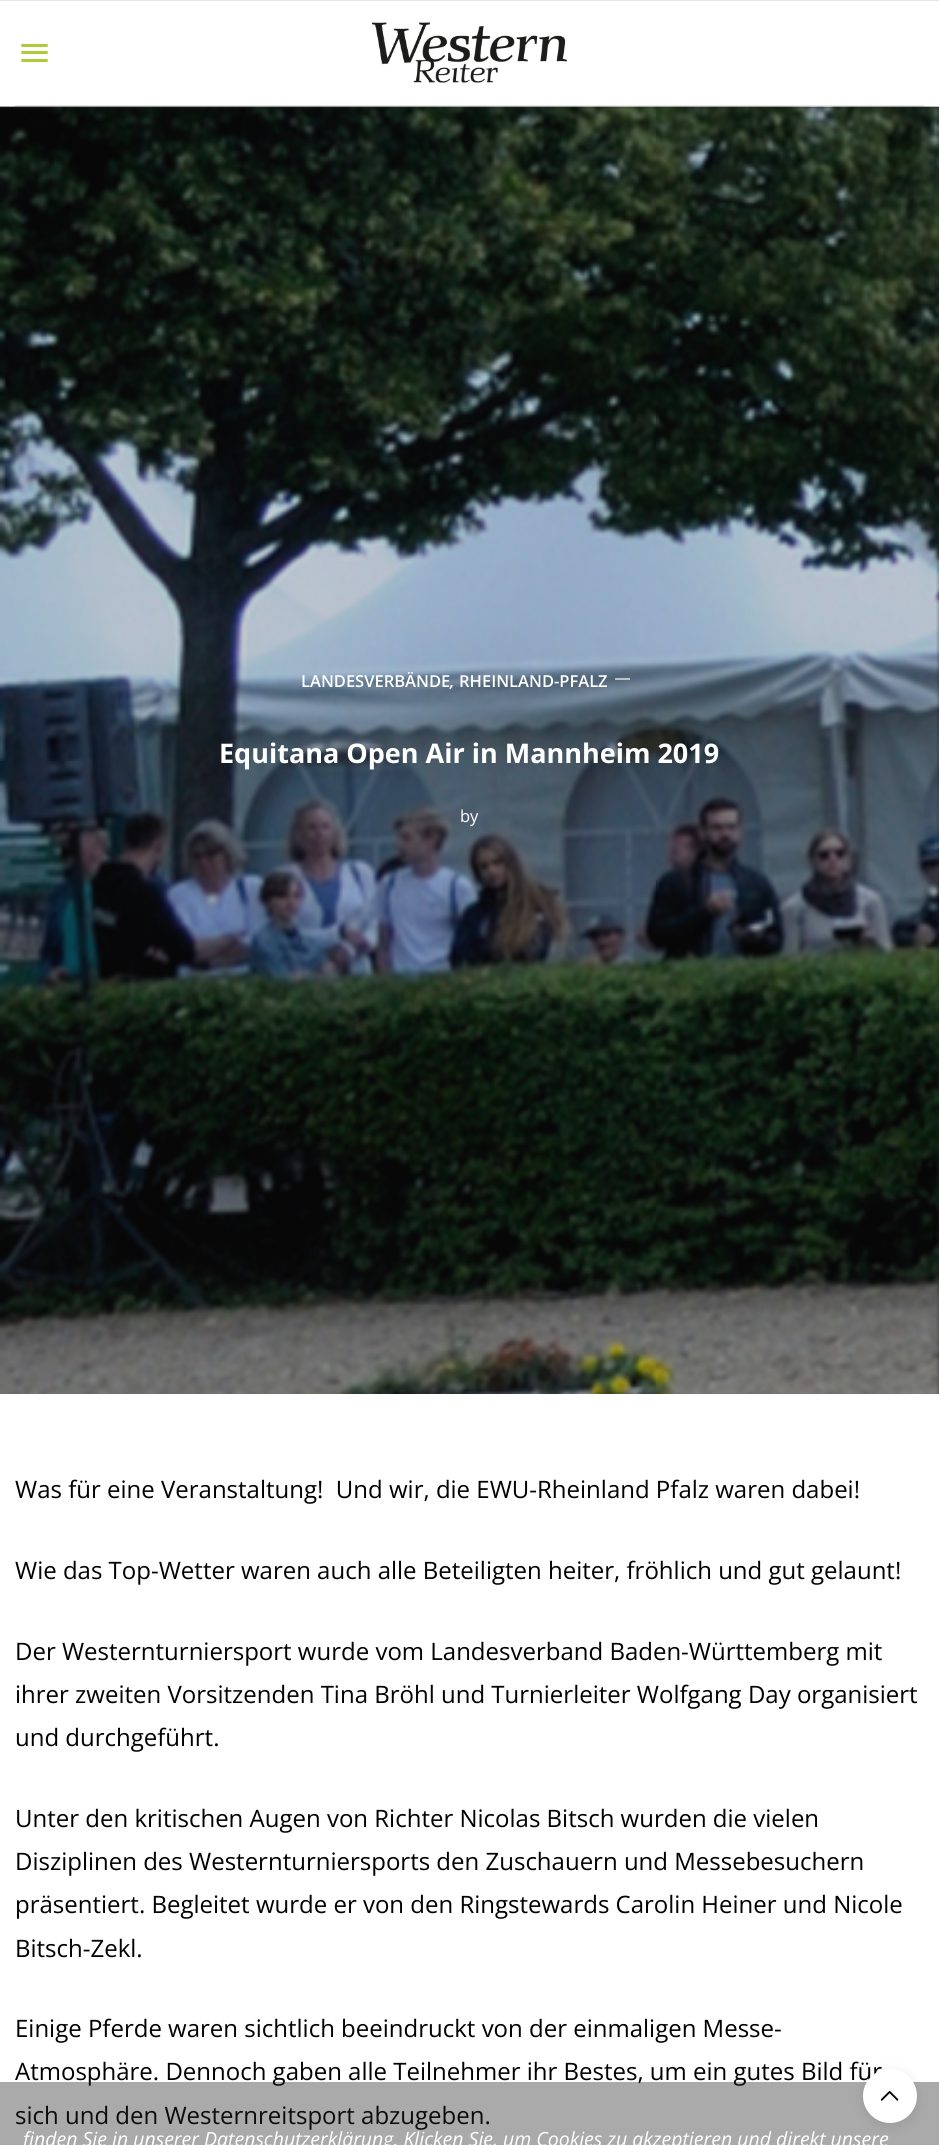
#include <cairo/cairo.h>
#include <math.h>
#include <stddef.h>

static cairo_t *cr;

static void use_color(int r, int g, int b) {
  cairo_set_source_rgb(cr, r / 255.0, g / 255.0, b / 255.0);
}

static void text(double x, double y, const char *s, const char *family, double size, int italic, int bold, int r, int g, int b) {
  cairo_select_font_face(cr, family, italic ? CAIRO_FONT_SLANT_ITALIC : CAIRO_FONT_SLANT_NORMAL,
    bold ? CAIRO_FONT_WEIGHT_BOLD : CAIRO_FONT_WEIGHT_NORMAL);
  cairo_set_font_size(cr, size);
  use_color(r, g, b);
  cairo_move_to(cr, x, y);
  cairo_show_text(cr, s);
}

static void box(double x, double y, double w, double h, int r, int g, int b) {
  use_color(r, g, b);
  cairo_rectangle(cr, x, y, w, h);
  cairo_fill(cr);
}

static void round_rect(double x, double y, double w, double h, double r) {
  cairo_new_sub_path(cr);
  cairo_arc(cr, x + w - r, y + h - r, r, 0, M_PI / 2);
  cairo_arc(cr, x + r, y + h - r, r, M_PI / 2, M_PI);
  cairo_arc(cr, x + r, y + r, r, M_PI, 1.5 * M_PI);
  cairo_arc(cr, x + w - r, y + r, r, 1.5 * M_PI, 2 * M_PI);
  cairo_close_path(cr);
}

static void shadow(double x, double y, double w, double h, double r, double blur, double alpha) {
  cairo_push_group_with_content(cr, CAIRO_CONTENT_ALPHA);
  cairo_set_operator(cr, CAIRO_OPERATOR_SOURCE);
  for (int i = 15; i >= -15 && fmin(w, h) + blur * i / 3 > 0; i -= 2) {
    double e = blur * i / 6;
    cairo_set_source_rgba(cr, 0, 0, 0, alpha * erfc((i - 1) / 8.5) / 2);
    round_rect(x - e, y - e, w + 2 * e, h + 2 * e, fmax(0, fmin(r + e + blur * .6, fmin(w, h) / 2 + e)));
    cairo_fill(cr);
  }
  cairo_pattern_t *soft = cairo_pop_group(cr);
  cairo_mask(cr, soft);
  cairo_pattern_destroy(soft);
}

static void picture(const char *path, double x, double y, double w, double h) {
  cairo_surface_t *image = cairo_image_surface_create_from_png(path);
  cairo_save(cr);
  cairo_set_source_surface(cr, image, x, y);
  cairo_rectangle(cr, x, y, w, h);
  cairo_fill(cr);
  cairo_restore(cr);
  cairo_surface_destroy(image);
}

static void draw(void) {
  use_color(255, 255, 255);
  cairo_paint(cr);
  box(0, 0, 939, 1, 230, 230, 230);
  box(15, 105, 909, 2, 230, 230, 230);
  use_color(175, 203, 55);
  round_rect(21, 44, 27, 3, 1.5);
  cairo_fill(cr);
  round_rect(21, 51, 27, 3, 1.5);
  cairo_fill(cr);
  round_rect(21, 59, 27, 3, 1.5);
  cairo_fill(cr);
  picture("img_01.png", 372, 22, 195, 61);
  box(0, 107, 939, 1287, 34, 34, 34);
  picture("img_02.png", 0, 106, 939, 1288);
  cairo_set_source_rgba(cr, 1, 1, 1, 0.6);
  cairo_rectangle(cr, 615, 678, 15, 2);
  cairo_fill(cr);
  text(301, 687, "LANDESVERBÄNDE", "Open Sans SemiBold", 16.5, 0, 0, 255, 255, 255);
  text(459, 687, "RHEINLAND-PFALZ", "Open Sans SemiBold", 16.5, 0, 0, 255, 255, 255);
  text(450, 687, ",", "Open Sans SemiBold", 16.5, 1, 0, 255, 255, 255);
  text(219, 763, "Equitana Open Air in Mannheim 2019", "Open Sans", 27, 0, 1, 255, 255, 255);
  text(460, 822, "by", "Open Sans", 16.5, 0, 0, 255, 255, 255);
  text(15, 1498, "Was für eine Veranstaltung!  Und wir, die EWU-Rheinland Pfalz waren dabei!", "Open Sans", 24, 0, 0, 0, 0, 0);
  text(15, 1579, "Wie das Top-Wetter waren auch alle Beteiligten heiter, fröhlich und gut gelaunt!", "Open Sans", 24, 0, 0, 0, 0, 0);
  text(15, 1660, "Der Westernturniersport wurde vom Landesverband Baden-Württemberg mit", "Open Sans", 24, 0, 0, 0, 0, 0);
  text(15, 1703, "ihrer zweiten Vorsitzenden Tina Bröhl und Turnierleiter Wolfgang Day organisiert", "Open Sans", 24, 0, 0, 0, 0, 0);
  text(15, 1746, "und durchgeführt.", "Open Sans", 24, 0, 0, 0, 0, 0);
  text(15, 1827, "Unter den kritischen Augen von Richter Nicolas Bitsch wurden die vielen", "Open Sans", 24, 0, 0, 0, 0, 0);
  text(15, 1870, "Disziplinen des Westernturniersports den Zuschauern und Messebesuchern", "Open Sans", 24, 0, 0, 0, 0, 0);
  text(15, 1913, "präsentiert. Begleitet wurde er von den Ringstewards Carolin Heiner und Nicole", "Open Sans", 24, 0, 0, 0, 0, 0);
  text(15, 1957, "Bitsch-Zekl.", "Open Sans", 24, 0, 0, 0, 0, 0);
  text(15, 2037, "Einige Pferde waren sichtlich beeindruckt von der einmaligen Messe-", "Open Sans", 24, 0, 0, 0, 0, 0);
  text(15, 2080, "Atmosphäre. Dennoch gaben alle Teilnehmer ihr Bestes, um ein gutes Bild für", "Open Sans", 24, 0, 0, 0, 0, 0);
  text(15, 2124, "sich und den Westernreitsport abzugeben.", "Open Sans", 24, 0, 0, 0, 0, 0);
  cairo_set_source_rgba(cr, 0.133, 0.133, 0.133, 0.38);
  cairo_rectangle(cr, 0, 2082, 939, 63);
  cairo_fill(cr);
  text(23, 2146, "finden Sie in unserer Datenschutzerklärung. Klicken Sie, um Cookies zu akzeptieren und direkt unsere", "Open Sans", 19.5, 1, 0, 255, 255, 255);
  use_color(0, 0, 0);
  shadow(863, 2072, 54, 54, 27, 6, 0.1);
  use_color(255, 255, 255);
  cairo_arc(cr, 890, 2096, 27, 0, 2 * M_PI);
  cairo_fill(cr);
  picture("img_03.png", 880, 2091, 19, 10);
}

int main(void) {
  cairo_surface_t *surface = cairo_image_surface_create(CAIRO_FORMAT_RGB24, 939, 2145);
  cr = cairo_create(surface);
  cairo_font_options_t *options = cairo_font_options_create();
  cairo_font_options_set_hint_metrics(options, CAIRO_HINT_METRICS_OFF);
  cairo_font_options_set_hint_style(options, CAIRO_HINT_STYLE_NONE);
  cairo_set_font_options(cr, options);
  cairo_set_miter_limit(cr, 4);
  draw();
  cairo_surface_write_to_png(surface, "out.png");
  cairo_font_options_destroy(options);
  cairo_destroy(cr);
  cairo_surface_destroy(surface);
  return 0;
}
